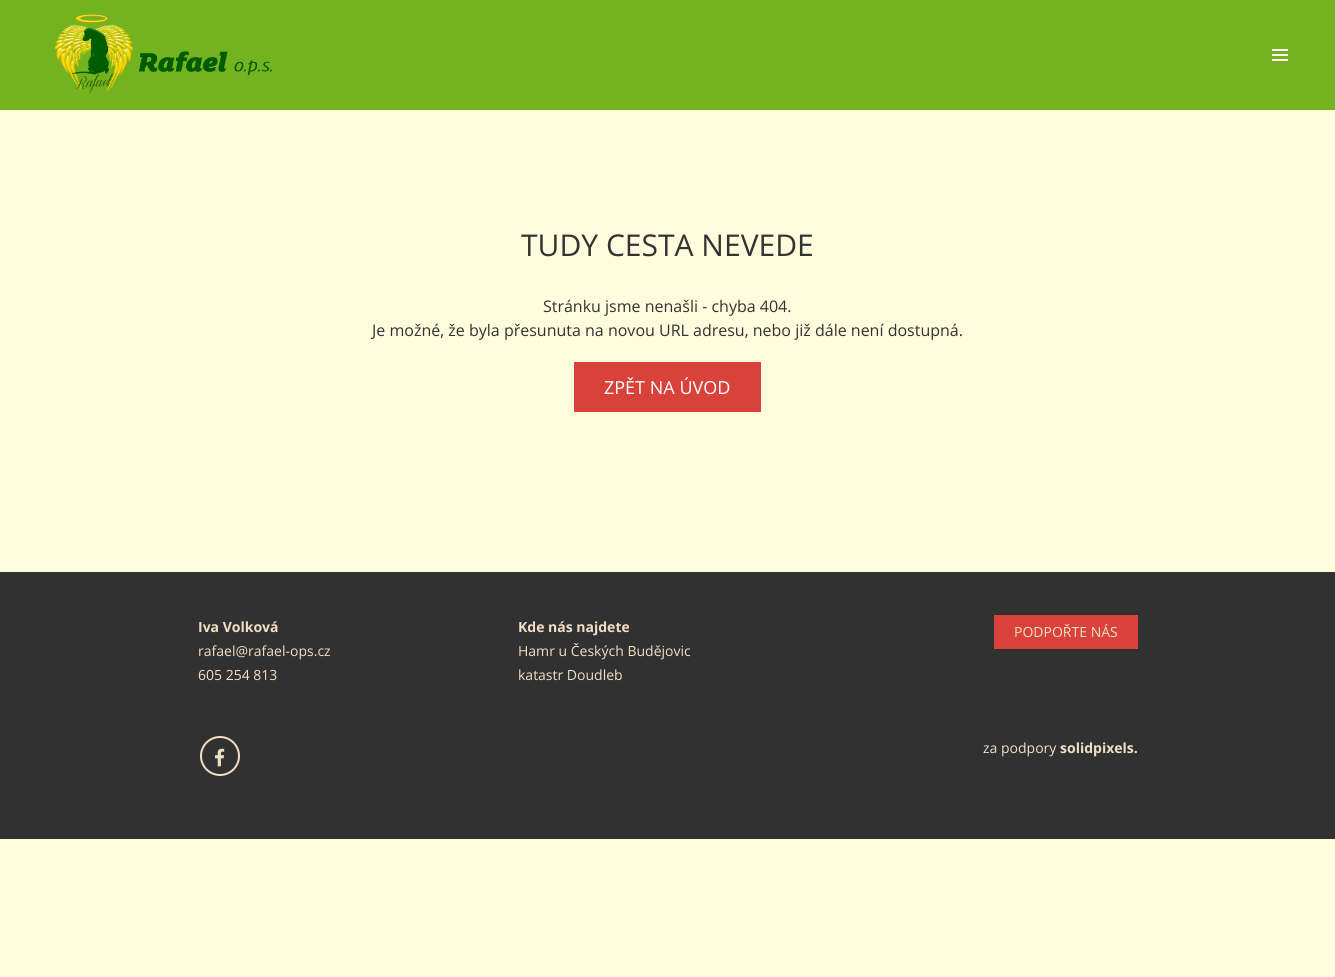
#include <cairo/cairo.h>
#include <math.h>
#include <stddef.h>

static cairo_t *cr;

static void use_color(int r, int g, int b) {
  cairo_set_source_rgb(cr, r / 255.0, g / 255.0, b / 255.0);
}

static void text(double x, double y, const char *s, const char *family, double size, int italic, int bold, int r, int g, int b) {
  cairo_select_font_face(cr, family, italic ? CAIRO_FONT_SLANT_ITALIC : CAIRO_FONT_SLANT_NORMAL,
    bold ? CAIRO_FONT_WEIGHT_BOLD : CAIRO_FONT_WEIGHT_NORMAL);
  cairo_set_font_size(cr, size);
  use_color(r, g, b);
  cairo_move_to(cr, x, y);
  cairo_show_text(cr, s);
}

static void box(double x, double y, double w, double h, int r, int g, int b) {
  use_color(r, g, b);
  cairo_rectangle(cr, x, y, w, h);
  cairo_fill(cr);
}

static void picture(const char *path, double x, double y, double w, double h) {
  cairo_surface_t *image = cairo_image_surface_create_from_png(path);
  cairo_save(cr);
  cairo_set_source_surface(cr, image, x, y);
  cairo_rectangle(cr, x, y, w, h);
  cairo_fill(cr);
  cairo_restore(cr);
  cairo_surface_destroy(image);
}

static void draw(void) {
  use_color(255, 252, 222);
  cairo_paint(cr);
  box(0, 0, 1335, 110, 116, 179, 32);
  picture("img_01.png", 54, 14, 219, 79);
  box(1272, 59, 16, 2, 255, 255, 255);
  box(1272, 49, 16, 2, 255, 255, 255);
  box(1272, 54, 16, 2, 255, 255, 255);
  box(574, 362, 187, 50, 216, 66, 58);
  box(0, 572, 1335, 267, 50, 49, 50);
  box(994, 615, 144, 34, 216, 66, 58);
  cairo_arc(cr, 220, 756, 19, 0, 2 * M_PI);
  use_color(241, 223, 197);
  cairo_stroke(cr);
  picture("img_02.png", 215, 748, 10, 19);
  text(521, 256, "TUDY CESTA NEVEDE", "Open Sans", 30, 0, 0, 51, 51, 51);
  text(543, 312, "Stránku jsme nenašli - chyba 404.", "Open Sans", 16, 0, 0, 51, 51, 51);
  text(372, 336, "Je možné, že byla přesunuta na novou URL adresu, nebo již dále není dostupná.", "Open Sans", 16, 0, 0, 51, 51, 51);
  text(604, 394, "ZPĚT NA ÚVOD", "Open Sans", 18, 0, 0, 255, 255, 255);
  text(198, 632, "Iva Volková", "Open Sans", 14, 0, 1, 241, 223, 197);
  text(198, 656, "rafael@rafael-ops.cz", "Open Sans", 14, 0, 0, 241, 223, 197);
  text(198, 680, "605 254 813", "Open Sans", 14, 0, 0, 241, 223, 197);
  text(518, 632, "Kde nás najdete", "Open Sans", 14, 0, 1, 241, 223, 197);
  text(518, 656, "Hamr u Českých Budějovic", "Open Sans", 14, 0, 0, 241, 223, 197);
  text(518, 680, "katastr Doudleb", "Open Sans", 14, 0, 0, 241, 223, 197);
  text(1014, 637, "PODPOŘTE NÁS", "Open Sans", 14, 0, 0, 241, 223, 197);
  text(983, 753, "za podpory", "Open Sans", 14, 0, 0, 241, 223, 197);
  text(1060, 753, "solidpixels.", "Open Sans", 14, 0, 1, 241, 223, 197);
}

int main(void) {
  cairo_surface_t *surface = cairo_image_surface_create(CAIRO_FORMAT_RGB24, 1335, 977);
  cr = cairo_create(surface);
  cairo_font_options_t *options = cairo_font_options_create();
  cairo_font_options_set_hint_metrics(options, CAIRO_HINT_METRICS_OFF);
  cairo_font_options_set_hint_style(options, CAIRO_HINT_STYLE_NONE);
  cairo_set_font_options(cr, options);
  cairo_set_miter_limit(cr, 4);
  draw();
  cairo_surface_write_to_png(surface, "out.png");
  cairo_font_options_destroy(options);
  cairo_destroy(cr);
  cairo_surface_destroy(surface);
  return 0;
}
